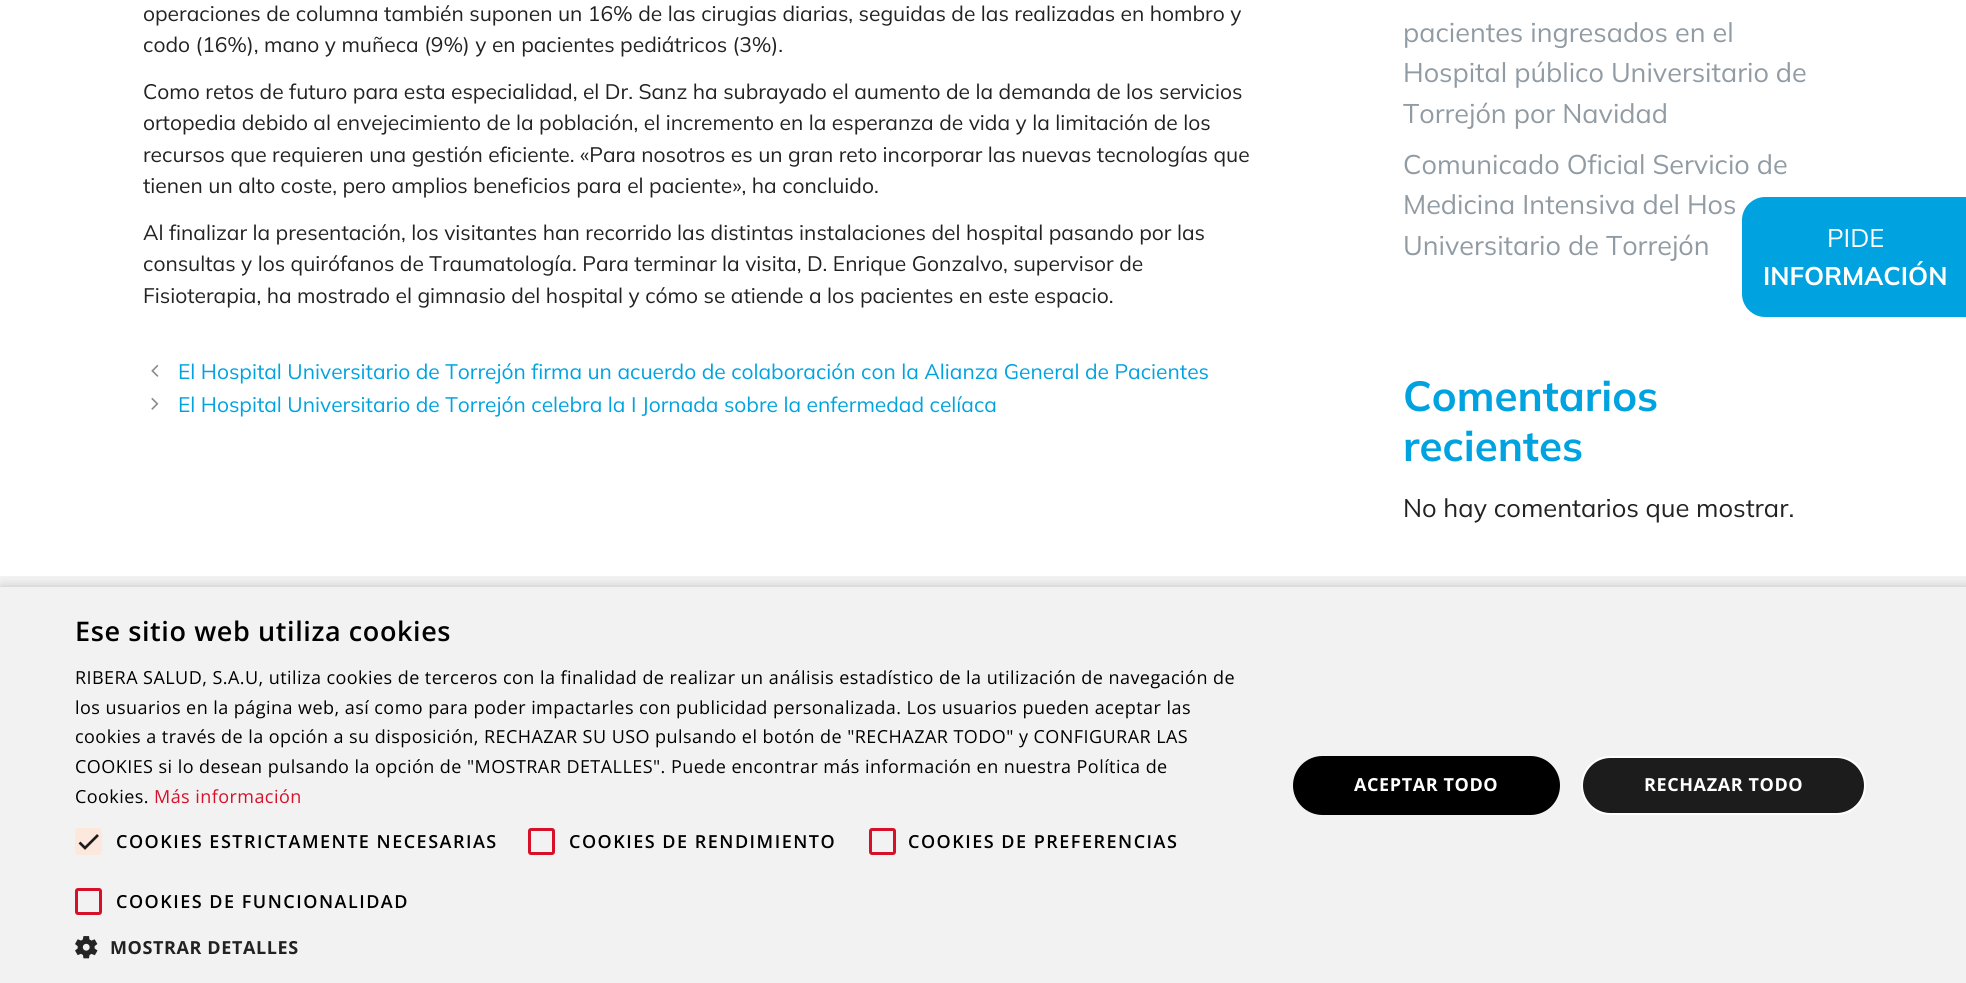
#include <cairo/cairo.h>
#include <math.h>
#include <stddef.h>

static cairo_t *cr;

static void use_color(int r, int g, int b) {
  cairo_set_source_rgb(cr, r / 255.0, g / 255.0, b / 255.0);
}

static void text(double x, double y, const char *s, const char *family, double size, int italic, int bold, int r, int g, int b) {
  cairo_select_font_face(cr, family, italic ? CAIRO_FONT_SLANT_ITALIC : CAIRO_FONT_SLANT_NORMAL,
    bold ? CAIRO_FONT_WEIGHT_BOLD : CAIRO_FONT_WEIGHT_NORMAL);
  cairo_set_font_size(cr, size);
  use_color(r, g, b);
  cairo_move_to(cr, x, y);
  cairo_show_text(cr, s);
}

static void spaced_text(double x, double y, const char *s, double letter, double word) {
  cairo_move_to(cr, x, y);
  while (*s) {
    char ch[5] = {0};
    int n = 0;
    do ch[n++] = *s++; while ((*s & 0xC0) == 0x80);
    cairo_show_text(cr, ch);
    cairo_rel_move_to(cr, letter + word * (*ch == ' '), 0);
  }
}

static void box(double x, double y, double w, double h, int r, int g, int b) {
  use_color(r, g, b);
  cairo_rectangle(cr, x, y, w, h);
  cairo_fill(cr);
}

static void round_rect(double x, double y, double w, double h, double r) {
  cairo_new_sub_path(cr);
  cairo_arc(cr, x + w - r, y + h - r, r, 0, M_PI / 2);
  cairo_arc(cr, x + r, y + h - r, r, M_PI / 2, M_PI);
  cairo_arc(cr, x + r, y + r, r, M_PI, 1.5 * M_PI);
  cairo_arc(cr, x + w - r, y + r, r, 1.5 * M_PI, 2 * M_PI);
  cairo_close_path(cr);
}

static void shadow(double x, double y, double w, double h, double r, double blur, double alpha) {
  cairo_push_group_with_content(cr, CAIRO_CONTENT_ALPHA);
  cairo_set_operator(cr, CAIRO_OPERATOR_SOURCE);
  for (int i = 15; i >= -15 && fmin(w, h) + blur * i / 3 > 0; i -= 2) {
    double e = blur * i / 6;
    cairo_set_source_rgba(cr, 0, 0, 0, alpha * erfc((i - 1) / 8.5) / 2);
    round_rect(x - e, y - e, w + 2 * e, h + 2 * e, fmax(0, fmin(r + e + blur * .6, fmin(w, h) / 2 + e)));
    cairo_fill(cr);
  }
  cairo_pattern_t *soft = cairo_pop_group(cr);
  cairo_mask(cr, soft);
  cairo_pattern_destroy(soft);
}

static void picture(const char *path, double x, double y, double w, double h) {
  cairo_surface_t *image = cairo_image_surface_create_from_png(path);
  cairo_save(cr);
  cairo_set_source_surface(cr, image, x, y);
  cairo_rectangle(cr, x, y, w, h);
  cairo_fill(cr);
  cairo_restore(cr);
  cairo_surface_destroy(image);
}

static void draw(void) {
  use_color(255, 255, 255);
  cairo_paint(cr);
  picture("img_01.png", 151, 364, 8, 13);
  picture("img_02.png", 151, 397, 8, 13);
  use_color(0, 163, 224);
  cairo_new_path(cr);
  cairo_move_to(cr, 1765, 197);
  cairo_line_to(cr, 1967, 197);
  cairo_line_to(cr, 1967, 317);
  cairo_line_to(cr, 1765, 317);
  cairo_curve_to(cr, 1752.5, 317, 1742, 306.5, 1742, 294);
  cairo_line_to(cr, 1742, 220);
  cairo_curve_to(cr, 1742, 207.5, 1752.5, 197, 1765, 197);
  cairo_close_path(cr);
  cairo_fill(cr);
  box(0, 576, 1966, 11, 242, 242, 242);
  use_color(0, 0, 0);
  shadow(2, 590, 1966, 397, 0, 6, 0.35);
  box(0, 587, 1966, 396, 242, 242, 242);
  use_color(253, 232, 222);
  round_rect(75, 828, 27, 27, 3);
  cairo_fill(cr);
  cairo_new_path(cr);
  cairo_move_to(cr, 79.5, 842.5);
  cairo_line_to(cr, 85, 848);
  cairo_line_to(cr, 98, 835);
  use_color(28, 28, 28);
  cairo_set_line_width(cr, 2.7);
  cairo_stroke(cr);
  round_rect(529.5, 829.5, 24, 24, 1.5);
  use_color(215, 16, 41);
  cairo_set_line_width(cr, 3);
  cairo_stroke(cr);
  round_rect(870.5, 829.5, 24, 24, 1.5);
  cairo_stroke(cr);
  round_rect(76.5, 889.5, 24, 24, 1.5);
  cairo_stroke(cr);
  picture("img_03.png", 75, 936, 23, 23);
  use_color(0, 0, 0);
  round_rect(1293, 756, 267, 59, 29.5);
  cairo_fill(cr);
  use_color(28, 28, 28);
  round_rect(1582, 757, 283, 57, 28.5);
  cairo_fill_preserve(cr);
  use_color(255, 255, 255);
  cairo_set_line_width(cr, 2);
  cairo_stroke(cr);
  text(143, 21, "operaciones de columna también suponen un 16% de las cirugias diarias, seguidas de las realizadas en hombro y", "Mulish", 21, 0, 0, 34, 34, 34);
  text(143, 52, "codo (16%), mano y muñeca (9%) y en pacientes pediátricos (3%).", "Mulish", 21, 0, 0, 34, 34, 34);
  text(143, 99, "Como retos de futuro para esta especialidad, el Dr. Sanz ha subrayado el aumento de la demanda de los servicios", "Mulish", 21, 0, 0, 34, 34, 34);
  text(143, 130, "ortopedia debido al envejecimiento de la población, el incremento en la esperanza de vida y la limitación de los", "Mulish", 21, 0, 0, 34, 34, 34);
  text(143, 162, "recursos que requieren una gestión eficiente. «Para nosotros es un gran reto incorporar las nuevas tecnologías que", "Mulish", 21, 0, 0, 34, 34, 34);
  text(143, 193, "tienen un alto coste, pero amplios beneficios para el paciente», ha concluido.", "Mulish", 21, 0, 0, 34, 34, 34);
  text(143, 240, "Al finalizar la presentación, los visitantes han recorrido las distintas instalaciones del hospital pasando por las", "Mulish", 21, 0, 0, 34, 34, 34);
  text(143, 271, "consultas y los quirófanos de Traumatología. Para terminar la visita, D. Enrique Gonzalvo, supervisor de", "Mulish", 21, 0, 0, 34, 34, 34);
  text(143, 303, "Fisioterapia, ha mostrado el gimnasio del hospital y cómo se atiende a los pacientes en este espacio.", "Mulish", 21, 0, 0, 34, 34, 34);
  text(178, 379, "El Hospital Universitario de Torrejón firma un acuerdo de colaboración con la Alianza General de Pacientes", "Mulish", 21, 0, 0, 0, 163, 224);
  text(178, 412, "El Hospital Universitario de Torrejón celebra la I Jornada sobre la enfermedad celíaca", "Mulish", 21, 0, 0, 0, 163, 224);
  text(1403, 42, "pacientes ingresados en el", "Mulish", 27, 0, 0, 145, 155, 163);
  text(1403, 82, "Hospital público Universitario de", "Mulish", 27, 0, 0, 145, 155, 163);
  text(1403, 123, "Torrejón por Navidad", "Mulish", 27, 0, 0, 145, 155, 163);
  text(1403, 174, "Comunicado Oficial Servicio de", "Mulish", 27, 0, 0, 145, 155, 163);
  text(1403, 214, "Medicina Intensiva del Hos", "Mulish", 27, 0, 0, 145, 155, 163);
  text(1403, 255, "Universitario de Torrejón", "Mulish", 27, 0, 0, 145, 155, 163);
  text(1403, 411, "Comentarios", "Mulish", 42, 0, 1, 0, 163, 224);
  text(1403, 461, "recientes", "Mulish", 42, 0, 1, 0, 163, 224);
  text(1403, 517, "No hay comentarios que mostrar.", "Mulish", 25.5, 0, 0, 34, 34, 34);
  text(1827, 247, "PIDE", "Mulish", 25.5, 0, 0, 255, 255, 255);
  text(1763, 285, "INFORMACIÓN", "Mulish", 25.5, 0, 1, 255, 255, 255);
  cairo_select_font_face(cr, "Open Sans SemiBold", CAIRO_FONT_SLANT_NORMAL, CAIRO_FONT_WEIGHT_NORMAL);
  cairo_set_font_size(cr, 27);
  use_color(0, 0, 0);
  spaced_text(75, 641, "Ese sitio web utiliza cookies", 0.6, 0);
  cairo_select_font_face(cr, "Open Sans", CAIRO_FONT_SLANT_NORMAL, CAIRO_FONT_WEIGHT_NORMAL);
  cairo_set_font_size(cr, 18);
  spaced_text(75, 684, "RIBERA SALUD, S.A.U, utiliza cookies de terceros con la finalidad de realizar un análisis estadístico de la utilización de navegación de", 0.45, 0);
  spaced_text(75, 714, "los usuarios en la página web, así como para poder impactarles con publicidad personalizada. Los usuarios pueden aceptar las", 0.45, 0);
  spaced_text(75, 743, "cookies a través de la opción a su disposición, RECHAZAR SU USO pulsando el botón de \"RECHAZAR TODO\" y CONFIGURAR LAS", 0.45, 0);
  spaced_text(75, 773, "COOKIES si lo desean pulsando la opción de \"MOSTRAR DETALLES\". Puede encontrar más información en nuestra Política de", 0.45, 0);
  spaced_text(75, 803, "Cookies.", 0.45, 0);
  use_color(215, 16, 41);
  spaced_text(154, 803, "Más información", 0.45, 0);
  cairo_select_font_face(cr, "Open Sans SemiBold", CAIRO_FONT_SLANT_NORMAL, CAIRO_FONT_WEIGHT_NORMAL);
  use_color(0, 0, 0);
  spaced_text(116, 848, "COOKIES ESTRICTAMENTE NECESARIAS", 1.5, 0);
  spaced_text(569, 848, "COOKIES DE RENDIMIENTO", 1.5, 0);
  spaced_text(908, 848, "COOKIES DE PREFERENCIAS", 1.5, 0);
  spaced_text(116, 908, "COOKIES DE FUNCIONALIDAD", 1.5, 0);
  cairo_select_font_face(cr, "Open Sans", CAIRO_FONT_SLANT_NORMAL, CAIRO_FONT_WEIGHT_BOLD);
  use_color(34, 34, 34);
  spaced_text(110, 954, "MOSTRAR DETALLES", 0.6, 0);
  use_color(255, 255, 255);
  spaced_text(1354, 791, "ACEPTAR TODO", 0.6, 0);
  spaced_text(1644, 791, "RECHAZAR TODO", 0.6, 0);
}

int main(void) {
  cairo_surface_t *surface = cairo_image_surface_create(CAIRO_FORMAT_RGB24, 1966, 983);
  cr = cairo_create(surface);
  cairo_font_options_t *options = cairo_font_options_create();
  cairo_font_options_set_hint_metrics(options, CAIRO_HINT_METRICS_OFF);
  cairo_font_options_set_hint_style(options, CAIRO_HINT_STYLE_NONE);
  cairo_set_font_options(cr, options);
  cairo_set_miter_limit(cr, 4);
  draw();
  cairo_surface_write_to_png(surface, "out.png");
  cairo_font_options_destroy(options);
  cairo_destroy(cr);
  cairo_surface_destroy(surface);
  return 0;
}
